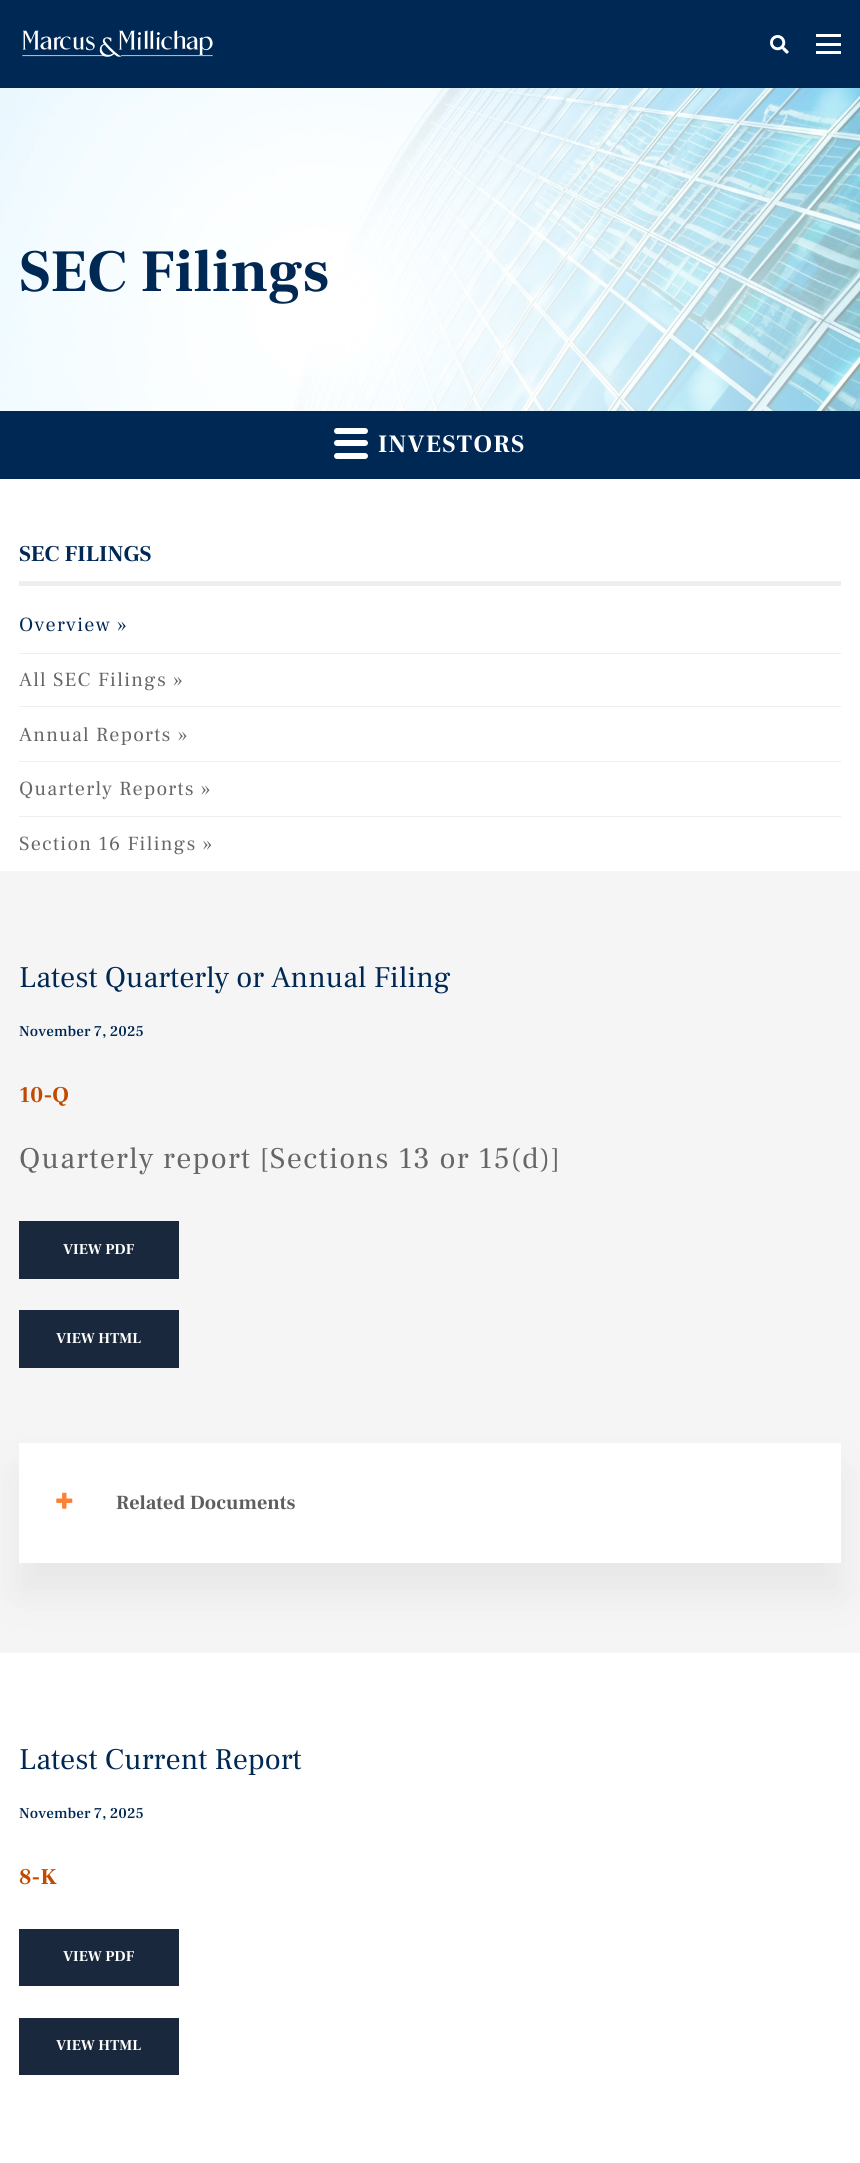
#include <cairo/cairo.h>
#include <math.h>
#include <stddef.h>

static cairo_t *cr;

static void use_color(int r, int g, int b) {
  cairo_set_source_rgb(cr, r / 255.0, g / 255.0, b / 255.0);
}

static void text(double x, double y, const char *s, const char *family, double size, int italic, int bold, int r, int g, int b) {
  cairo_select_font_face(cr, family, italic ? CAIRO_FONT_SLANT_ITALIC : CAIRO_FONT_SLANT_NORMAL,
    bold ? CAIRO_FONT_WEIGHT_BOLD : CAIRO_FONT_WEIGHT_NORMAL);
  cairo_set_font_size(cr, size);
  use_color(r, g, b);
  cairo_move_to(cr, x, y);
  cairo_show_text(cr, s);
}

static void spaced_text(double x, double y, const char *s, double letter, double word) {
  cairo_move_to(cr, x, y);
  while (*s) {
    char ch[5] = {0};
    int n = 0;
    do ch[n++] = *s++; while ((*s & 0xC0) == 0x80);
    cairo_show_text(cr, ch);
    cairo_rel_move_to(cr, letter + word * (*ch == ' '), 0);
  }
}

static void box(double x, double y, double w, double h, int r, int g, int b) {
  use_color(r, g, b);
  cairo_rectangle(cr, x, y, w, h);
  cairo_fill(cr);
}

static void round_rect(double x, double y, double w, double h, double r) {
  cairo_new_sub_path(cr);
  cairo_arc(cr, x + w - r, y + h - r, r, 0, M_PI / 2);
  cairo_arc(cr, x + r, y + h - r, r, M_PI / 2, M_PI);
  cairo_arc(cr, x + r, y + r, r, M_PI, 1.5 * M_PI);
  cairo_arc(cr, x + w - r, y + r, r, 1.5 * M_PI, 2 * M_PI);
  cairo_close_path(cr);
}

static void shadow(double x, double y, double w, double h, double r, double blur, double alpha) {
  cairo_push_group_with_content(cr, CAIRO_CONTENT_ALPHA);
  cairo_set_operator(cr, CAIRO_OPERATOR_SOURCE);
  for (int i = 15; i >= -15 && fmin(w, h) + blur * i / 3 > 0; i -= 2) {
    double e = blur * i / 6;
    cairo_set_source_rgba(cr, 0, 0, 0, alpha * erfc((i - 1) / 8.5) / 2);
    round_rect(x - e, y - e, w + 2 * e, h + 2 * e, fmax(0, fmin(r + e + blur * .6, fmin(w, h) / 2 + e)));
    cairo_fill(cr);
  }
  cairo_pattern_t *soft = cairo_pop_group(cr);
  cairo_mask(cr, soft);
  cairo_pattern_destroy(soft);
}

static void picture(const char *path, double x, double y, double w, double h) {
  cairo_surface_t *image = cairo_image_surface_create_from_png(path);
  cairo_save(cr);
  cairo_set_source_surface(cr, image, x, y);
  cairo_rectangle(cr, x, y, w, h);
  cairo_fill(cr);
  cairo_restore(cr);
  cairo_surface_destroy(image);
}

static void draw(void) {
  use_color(255, 255, 255);
  cairo_paint(cr);
  box(0, 0, 860, 88, 0, 40, 85);
  picture("img_01.png", 22, 30, 191, 27);
  box(816, 34, 25, 3, 255, 255, 255);
  box(816, 43, 25, 3, 255, 255, 255);
  box(816, 51, 25, 3, 255, 255, 255);
  picture("img_02.png", 770, 35, 19, 19);
  picture("img_03.png", 0, 88, 860, 323);
  box(0, 411, 860, 68, 0, 40, 85);
  use_color(255, 255, 255);
  round_rect(334, 428, 34, 6, 3);
  cairo_fill(cr);
  round_rect(334, 440, 34, 6, 3);
  cairo_fill(cr);
  round_rect(334, 453, 34, 6, 3);
  cairo_fill(cr);
  box(19, 581, 822, 5, 238, 238, 238);
  box(19, 653, 822, 1, 238, 238, 238);
  box(19, 706, 822, 1, 238, 238, 238);
  box(19, 761, 822, 1, 238, 238, 238);
  box(19, 816, 822, 1, 238, 238, 238);
  box(0, 871, 860, 782, 245, 245, 245);
  box(19, 1221, 160, 58, 25, 40, 61);
  box(19, 1310, 160, 58, 25, 40, 61);
  use_color(102, 102, 102);
  shadow(19, 1473, 822, 120, 0, 20, 0.1);
  box(19, 1443, 822, 120, 255, 255, 255);
  picture("img_04.png", 56, 1492, 17, 17);
  box(19, 1929, 160, 57, 25, 40, 61);
  box(19, 2018, 160, 57, 25, 40, 61);
  text(19, 291, "SEC Filings", "Frank Ruhl Libre", 60, 0, 1, 0, 40, 85);
  cairo_set_font_size(cr, 25);
  use_color(255, 255, 255);
  spaced_text(378, 452, "INVESTORS", 1.25, 0);
  text(19, 561, "SEC FILINGS", "Frank Ruhl Libre", 22.5, 0, 1, 0, 40, 85);
  cairo_select_font_face(cr, "Frank Ruhl Libre", CAIRO_FONT_SLANT_NORMAL, CAIRO_FONT_WEIGHT_NORMAL);
  cairo_set_font_size(cr, 20);
  spaced_text(19, 631, "Overview »", 1.25, 0);
  use_color(102, 102, 102);
  spaced_text(19, 686, "All SEC Filings »", 1.25, 0);
  spaced_text(19, 741, "Annual Reports »", 1.25, 0);
  spaced_text(19, 795, "Quarterly Reports »", 1.25, 0);
  spaced_text(19, 850, "Section 16 Filings »", 1.25, 0);
  text(19, 987, "Latest Quarterly or Annual Filing", "Frank Ruhl Libre", 30, 0, 0, 0, 40, 85);
  text(19, 1036, "November 7, 2025", "Frank Ruhl Libre Medium", 15, 0, 0, 0, 40, 85);
  text(19, 1102, "10-Q", "Frank Ruhl Libre", 22.5, 0, 1, 194, 74, 0);
  cairo_select_font_face(cr, "Frank Ruhl Libre", CAIRO_FONT_SLANT_NORMAL, CAIRO_FONT_WEIGHT_NORMAL);
  cairo_set_font_size(cr, 30);
  use_color(102, 102, 102);
  spaced_text(19, 1168, "Quarterly report [Sections 13 or 15(d)]", 1.25, 0);
  text(63, 1254, "VIEW PDF", "Frank Ruhl Libre", 15, 0, 1, 255, 255, 255);
  text(56, 1343, "VIEW HTML", "Frank Ruhl Libre", 15, 0, 1, 255, 255, 255);
  text(116, 1509, "Related Documents", "Frank Ruhl Libre", 20, 0, 1, 94, 94, 94);
  text(19, 1769, "Latest Current Report", "Frank Ruhl Libre", 30, 0, 0, 0, 40, 85);
  text(19, 1818, "November 7, 2025", "Frank Ruhl Libre Medium", 15, 0, 0, 0, 40, 85);
  text(19, 1884, "8-K", "Frank Ruhl Libre", 22.5, 0, 1, 194, 74, 0);
  text(63, 1961, "VIEW PDF", "Frank Ruhl Libre", 15, 0, 1, 255, 255, 255);
  text(56, 2050, "VIEW HTML", "Frank Ruhl Libre", 15, 0, 1, 255, 255, 255);
}

int main(void) {
  cairo_surface_t *surface = cairo_image_surface_create(CAIRO_FORMAT_RGB24, 860, 2163);
  cr = cairo_create(surface);
  cairo_font_options_t *options = cairo_font_options_create();
  cairo_font_options_set_hint_metrics(options, CAIRO_HINT_METRICS_OFF);
  cairo_font_options_set_hint_style(options, CAIRO_HINT_STYLE_NONE);
  cairo_set_font_options(cr, options);
  cairo_set_miter_limit(cr, 4);
  draw();
  cairo_surface_write_to_png(surface, "out.png");
  cairo_font_options_destroy(options);
  cairo_destroy(cr);
  cairo_surface_destroy(surface);
  return 0;
}
